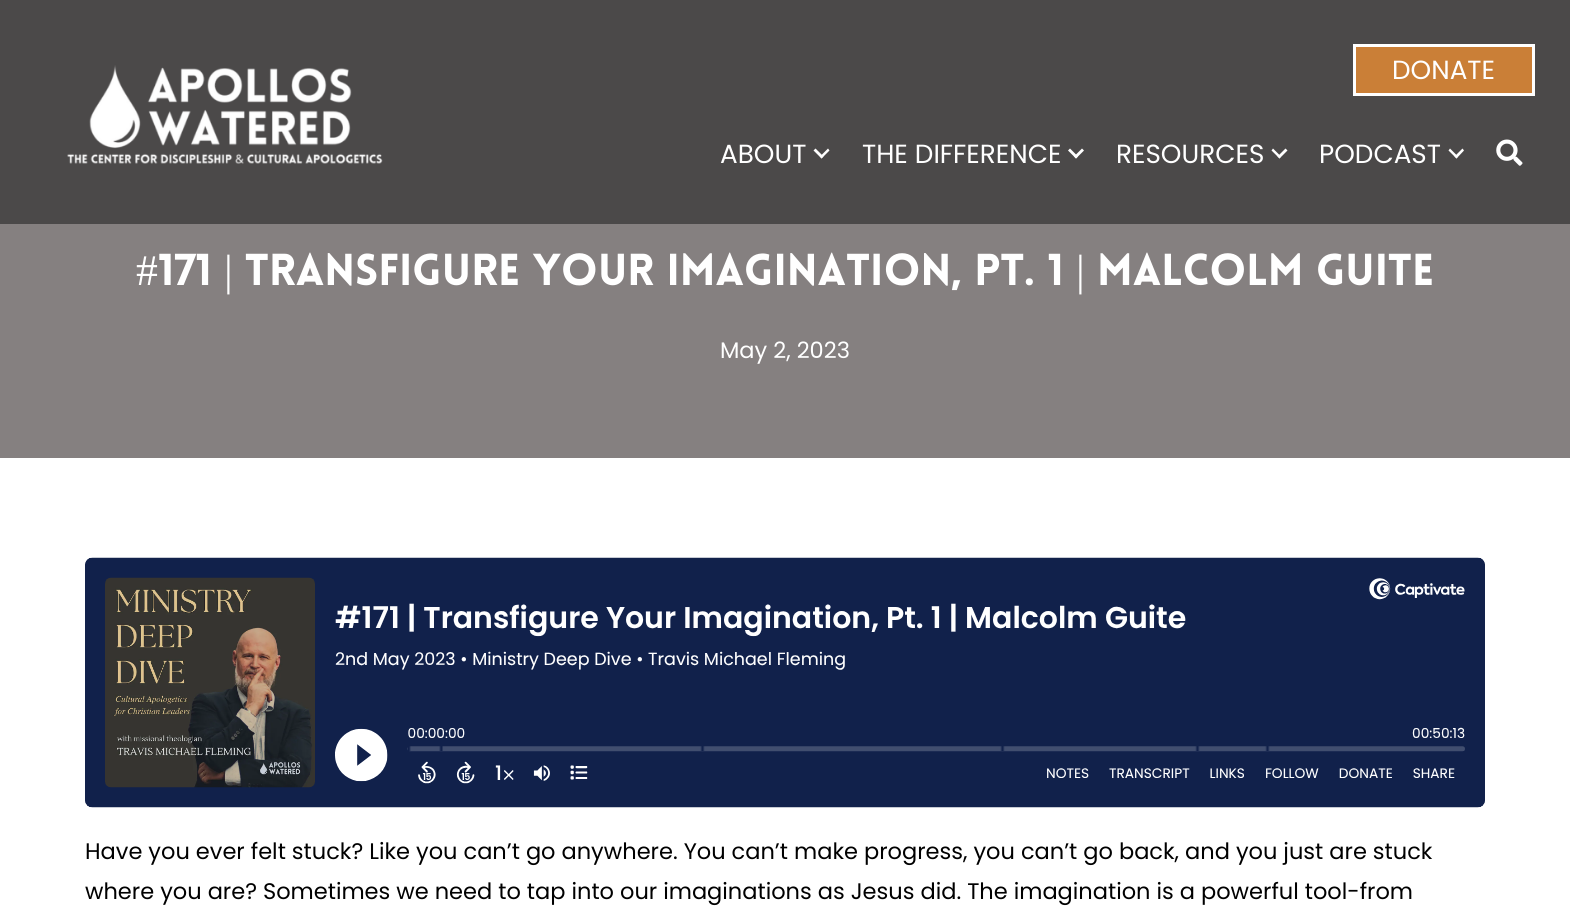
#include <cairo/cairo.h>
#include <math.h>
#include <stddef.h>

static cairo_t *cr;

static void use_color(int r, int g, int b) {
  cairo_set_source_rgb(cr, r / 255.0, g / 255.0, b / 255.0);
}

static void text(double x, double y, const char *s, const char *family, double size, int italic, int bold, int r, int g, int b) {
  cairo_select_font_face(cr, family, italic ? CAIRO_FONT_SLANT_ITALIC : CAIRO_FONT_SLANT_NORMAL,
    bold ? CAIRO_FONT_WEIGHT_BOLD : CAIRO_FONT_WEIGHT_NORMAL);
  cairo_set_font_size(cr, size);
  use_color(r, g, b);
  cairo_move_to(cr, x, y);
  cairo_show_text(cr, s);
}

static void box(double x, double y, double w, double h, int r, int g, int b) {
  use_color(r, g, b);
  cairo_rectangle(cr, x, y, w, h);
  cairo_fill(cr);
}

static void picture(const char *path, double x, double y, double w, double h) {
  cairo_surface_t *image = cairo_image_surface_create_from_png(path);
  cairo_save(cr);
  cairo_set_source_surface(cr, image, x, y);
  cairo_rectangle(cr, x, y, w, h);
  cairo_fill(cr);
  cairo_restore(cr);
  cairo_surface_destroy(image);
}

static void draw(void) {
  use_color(255, 255, 255);
  cairo_paint(cr);
  box(0, 0, 1570, 224, 75, 73, 73);
  picture("img_01.png", 67, 65, 316, 99);
  use_color(202, 127, 55);
  cairo_rectangle(cr, 1354.5, 45.5, 179, 49);
  cairo_fill_preserve(cr);
  use_color(255, 255, 255);
  cairo_set_line_width(cr, 3);
  cairo_stroke(cr);
  cairo_new_path(cr);
  cairo_move_to(cr, 828, 148.5);
  cairo_line_to(cr, 829.5, 150.5);
  cairo_line_to(cr, 821.5, 158.5);
  cairo_line_to(cr, 820, 156.5);
  cairo_close_path(cr);
  cairo_fill(cr);
  cairo_new_path(cr);
  cairo_move_to(cr, 815.5, 148.5);
  cairo_line_to(cr, 823.5, 156.5);
  cairo_line_to(cr, 821.5, 158.5);
  cairo_line_to(cr, 813.5, 150.5);
  cairo_close_path(cr);
  cairo_fill(cr);
  cairo_new_path(cr);
  cairo_move_to(cr, 1082, 148.5);
  cairo_line_to(cr, 1084, 150.5);
  cairo_line_to(cr, 1076, 158.5);
  cairo_line_to(cr, 1074, 156.5);
  cairo_close_path(cr);
  cairo_fill(cr);
  cairo_new_path(cr);
  cairo_move_to(cr, 1070, 148.5);
  cairo_line_to(cr, 1078, 156.5);
  cairo_line_to(cr, 1076, 158.5);
  cairo_line_to(cr, 1068, 150.5);
  cairo_close_path(cr);
  cairo_fill(cr);
  cairo_new_path(cr);
  cairo_move_to(cr, 1285.5, 148.5);
  cairo_line_to(cr, 1287.5, 150.5);
  cairo_line_to(cr, 1279.5, 158.5);
  cairo_line_to(cr, 1277.5, 156.5);
  cairo_close_path(cr);
  cairo_fill(cr);
  cairo_new_path(cr);
  cairo_move_to(cr, 1273, 148.5);
  cairo_line_to(cr, 1281, 156.5);
  cairo_line_to(cr, 1279.5, 158.5);
  cairo_line_to(cr, 1271.5, 150.5);
  cairo_close_path(cr);
  cairo_fill(cr);
  cairo_new_path(cr);
  cairo_move_to(cr, 1462.5, 148.5);
  cairo_line_to(cr, 1464, 150.5);
  cairo_line_to(cr, 1456.5, 158.5);
  cairo_line_to(cr, 1454.5, 156.5);
  cairo_close_path(cr);
  cairo_fill(cr);
  cairo_new_path(cr);
  cairo_move_to(cr, 1450, 148.5);
  cairo_line_to(cr, 1458, 156.5);
  cairo_line_to(cr, 1456.5, 158.5);
  cairo_line_to(cr, 1448.5, 150.5);
  cairo_close_path(cr);
  cairo_fill(cr);
  picture("img_02.png", 1496, 139, 27, 27);
  box(0, 224, 1570, 234, 133, 128, 128);
  picture("img_03.png", 85, 557, 1400, 251);
  text(1392, 79, "DONATE", "Poppins", 26.25, 0, 0, 255, 255, 255);
  text(720, 163, "ABOUT", "Poppins", 26.25, 0, 0, 255, 255, 255);
  text(862, 163, "THE DIFFERENCE", "Poppins", 26.25, 0, 0, 255, 255, 255);
  text(1116, 163, "RESOURCES", "Poppins", 26.25, 0, 0, 255, 255, 255);
  text(1319, 163, "PODCAST", "Poppins", 26.25, 0, 0, 255, 255, 255);
  text(136, 285, "#", "Liberation Serif", 43.75, 0, 0, 255, 255, 255);
  text(158, 285, "171", "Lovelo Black", 43.75, 0, 0, 255, 255, 255);
  text(224, 285, "|", "Liberation Serif", 43.75, 0, 0, 255, 255, 255);
  text(245, 285, "Transfigure Your Imagination, Pt. 1", "Lovelo Black", 43.75, 0, 0, 255, 255, 255);
  text(1076, 285, "|", "Liberation Serif", 43.75, 0, 0, 255, 255, 255);
  text(1097, 285, "Malcolm Guite", "Lovelo Black", 43.75, 0, 0, 255, 255, 255);
  text(720, 358, "May 2, 2023", "Poppins", 22.5, 0, 0, 255, 255, 255);
  text(85, 859, "Have you ever felt stuck? Like you can’t go anywhere. You can’t make progress, you can’t go back, and you just are stuck", "Poppins", 22.5, 0, 0, 0, 0, 0);
  text(85, 899, "where you are? Sometimes we need to tap into our imaginations as Jesus did. The imagination is a powerful tool-from", "Poppins", 22.5, 0, 0, 0, 0, 0);
}

int main(void) {
  cairo_surface_t *surface = cairo_image_surface_create(CAIRO_FORMAT_RGB24, 1570, 912);
  cr = cairo_create(surface);
  cairo_font_options_t *options = cairo_font_options_create();
  cairo_font_options_set_hint_metrics(options, CAIRO_HINT_METRICS_OFF);
  cairo_font_options_set_hint_style(options, CAIRO_HINT_STYLE_NONE);
  cairo_set_font_options(cr, options);
  cairo_set_miter_limit(cr, 4);
  draw();
  cairo_surface_write_to_png(surface, "out.png");
  cairo_font_options_destroy(options);
  cairo_destroy(cr);
  cairo_surface_destroy(surface);
  return 0;
}
